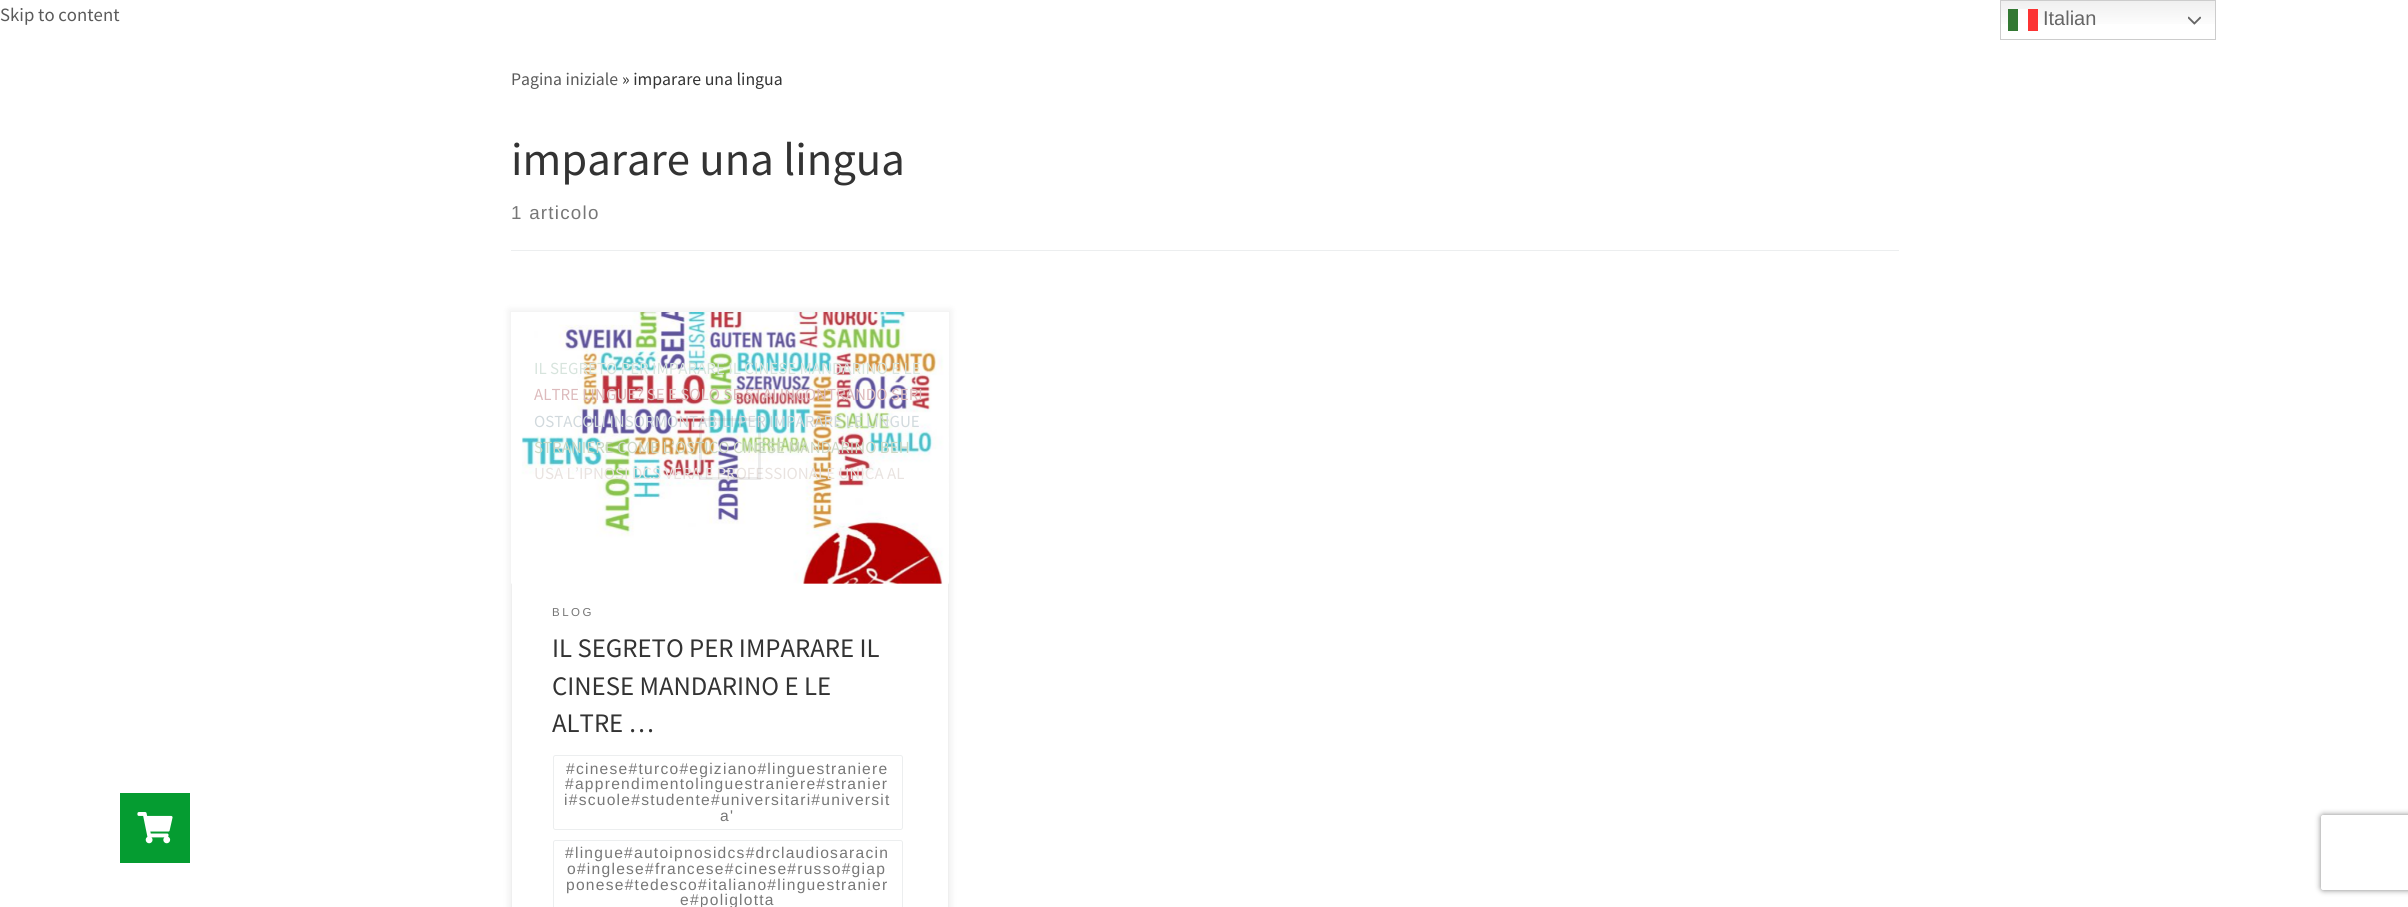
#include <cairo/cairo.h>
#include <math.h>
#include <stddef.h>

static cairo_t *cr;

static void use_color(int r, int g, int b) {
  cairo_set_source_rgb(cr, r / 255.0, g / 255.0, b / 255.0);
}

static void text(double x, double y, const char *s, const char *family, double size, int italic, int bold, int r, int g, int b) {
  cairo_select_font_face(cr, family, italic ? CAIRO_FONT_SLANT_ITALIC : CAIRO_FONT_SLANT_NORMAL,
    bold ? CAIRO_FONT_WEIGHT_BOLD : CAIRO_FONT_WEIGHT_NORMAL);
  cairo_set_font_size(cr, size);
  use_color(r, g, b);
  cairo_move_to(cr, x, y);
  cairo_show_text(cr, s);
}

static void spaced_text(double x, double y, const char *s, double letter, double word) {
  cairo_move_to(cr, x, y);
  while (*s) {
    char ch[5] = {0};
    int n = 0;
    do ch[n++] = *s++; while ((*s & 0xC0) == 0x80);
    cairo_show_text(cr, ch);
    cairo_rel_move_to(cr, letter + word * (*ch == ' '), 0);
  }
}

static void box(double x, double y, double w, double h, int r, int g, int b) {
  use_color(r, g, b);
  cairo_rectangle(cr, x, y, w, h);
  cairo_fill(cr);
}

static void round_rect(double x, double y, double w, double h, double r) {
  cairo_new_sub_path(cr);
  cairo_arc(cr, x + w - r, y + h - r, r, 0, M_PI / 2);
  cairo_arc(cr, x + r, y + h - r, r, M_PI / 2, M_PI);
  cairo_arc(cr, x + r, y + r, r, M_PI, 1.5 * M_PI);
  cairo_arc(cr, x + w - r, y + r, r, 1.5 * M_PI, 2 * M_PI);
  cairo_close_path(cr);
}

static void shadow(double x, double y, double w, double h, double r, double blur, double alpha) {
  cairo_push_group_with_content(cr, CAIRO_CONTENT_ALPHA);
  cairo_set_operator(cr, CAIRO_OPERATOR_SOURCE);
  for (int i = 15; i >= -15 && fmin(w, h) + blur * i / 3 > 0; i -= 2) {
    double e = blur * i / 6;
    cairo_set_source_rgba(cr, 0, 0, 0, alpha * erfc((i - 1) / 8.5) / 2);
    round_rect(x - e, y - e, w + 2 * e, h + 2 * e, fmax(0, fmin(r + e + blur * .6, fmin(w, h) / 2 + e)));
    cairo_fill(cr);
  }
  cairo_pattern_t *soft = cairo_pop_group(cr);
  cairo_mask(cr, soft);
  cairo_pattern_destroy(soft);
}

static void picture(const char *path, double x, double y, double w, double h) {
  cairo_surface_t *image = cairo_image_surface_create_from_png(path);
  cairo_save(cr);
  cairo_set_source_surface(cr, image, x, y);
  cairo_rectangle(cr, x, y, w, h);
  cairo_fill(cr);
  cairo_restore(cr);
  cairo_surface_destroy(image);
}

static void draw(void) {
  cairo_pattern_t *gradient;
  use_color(255, 255, 255);
  cairo_paint(cr);
  box(511, 250, 1388, 1, 236, 238, 239);
  use_color(0, 0, 0);
  shadow(509, 310, 442, 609, 0, 4, 0.07);
  box(512, 583, 436, 324, 255, 255, 255);
  round_rect(553.5, 755.5, 349, 74, 2);
  use_color(236, 238, 239);
  cairo_set_line_width(cr, 1);
  cairo_stroke(cr);
  round_rect(553.5, 840.5, 349, 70, 2);
  cairo_stroke(cr);
  cairo_rectangle(cr, 511.5, 313.5, 437, 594);
  use_color(239, 239, 239);
  cairo_stroke(cr);
  picture("img_01.png", 511, 312, 438, 272);
  gradient = cairo_pattern_create_linear(2108, 0, 2108, 40);
  cairo_pattern_add_color_stop_rgba(gradient, 0, 0.937, 0.937, 0.937, 1);
  cairo_pattern_add_color_stop_rgba(gradient, 0.7, 1, 1, 1, 1);
  cairo_set_source(cr, gradient);
  cairo_pattern_destroy(gradient);
  cairo_rectangle(cr, 2001, 1, 214, 23);
  cairo_fill(cr);
  gradient = cairo_pattern_create_linear(2108, 0, 2108, 40);
  cairo_pattern_add_color_stop_rgba(gradient, 0, 0.988, 0.988, 0.988, 1);
  cairo_pattern_add_color_stop_rgba(gradient, 0.7, 1, 1, 1, 1);
  cairo_set_source(cr, gradient);
  cairo_pattern_destroy(gradient);
  cairo_rectangle(cr, 2018, 9, 10, 15);
  cairo_fill(cr);
  cairo_rectangle(cr, 2000.5, 0.5, 215, 39);
  use_color(204, 204, 204);
  cairo_stroke(cr);
  box(2008, 9, 10, 22, 51, 120, 51);
  box(2028, 9, 10, 22, 252, 51, 51);
  picture("img_02.png", 2188, 16, 13, 9);
  box(120, 793, 70, 70, 5, 156, 49);
  picture("img_03.png", 137, 812, 36, 32);
  cairo_save(cr);
  cairo_set_fill_rule(cr, CAIRO_FILL_RULE_EVEN_ODD);
  cairo_new_path(cr);
  cairo_move_to(cr, 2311, 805);
  cairo_line_to(cr, 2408, 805);
  cairo_line_to(cr, 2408, 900);
  cairo_line_to(cr, 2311, 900);
  cairo_close_path(cr);
  cairo_move_to(cr, 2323.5, 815);
  cairo_line_to(cr, 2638.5, 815);
  cairo_curve_to(cr, 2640, 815, 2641, 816, 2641, 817.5);
  cairo_line_to(cr, 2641, 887.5);
  cairo_curve_to(cr, 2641, 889, 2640, 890, 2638.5, 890);
  cairo_line_to(cr, 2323.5, 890);
  cairo_curve_to(cr, 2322, 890, 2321, 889, 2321, 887.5);
  cairo_line_to(cr, 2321, 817.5);
  cairo_curve_to(cr, 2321, 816, 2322, 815, 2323.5, 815);
  cairo_close_path(cr);
  cairo_clip(cr);
  use_color(128, 128, 128);
  shadow(2321, 815, 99, 75, 2.5, 3, 1);
  cairo_restore(cr);
  text(0, 21, "Skip to content", "Source Sans Pro", 18.75, 0, 0, 90, 90, 90);
  text(511, 85, "Pagina iniziale", "Source Sans Pro", 17.75, 0, 0, 90, 90, 90);
  text(622, 85, "» imparare una lingua", "Source Sans Pro", 17.75, 0, 0, 51, 51, 51);
  text(511, 175, "imparare una lingua", "Source Sans Pro", 46.75, 0, 0, 51, 51, 51);
  cairo_select_font_face(cr, "Liberation Sans", CAIRO_FONT_SLANT_NORMAL, CAIRO_FONT_WEIGHT_NORMAL);
  cairo_set_font_size(cr, 18.75);
  use_color(119, 119, 119);
  spaced_text(511, 219, "1 articolo", 1.25, 0);
  text(534, 374, "IL SEGRETO PER IMPARARE IL CINESE MANDARINO E LE", "Source Sans Pro", 16.9, 0, 0, 215, 228, 221);
  text(534, 400, "ALTRE LINGUE? SE E SOLO SE STAI INCONTRANDO SERI", "Source Sans Pro", 16.9, 0, 0, 221, 187, 189);
  text(534, 427, "OSTACOLI INSORMONTABILI PER IMPARARE LE LINGUE", "Source Sans Pro", 16.9, 0, 0, 209, 217, 221);
  text(534, 453, "STRANIERE COME L’OSTICO CINESE MANDARINO BEH", "Source Sans Pro", 16.9, 0, 0, 206, 216, 197);
  text(534, 479, "USA L’IPNOSI DCS VERA E PROFESSIONALE UNICA AL", "Source Sans Pro", 16.9, 0, 0, 233, 227, 224);
  cairo_rectangle(cr, 700.5, 419.5, 59, 59);
  cairo_set_source_rgba(cr, 0.467, 0.467, 0.467, 0.04);
  cairo_set_line_width(cr, 3);
  cairo_stroke(cr);
  cairo_rectangle(cr, 700.5, 419.5, 59, 59);
  cairo_stroke(cr);
  cairo_rectangle(cr, 700.5, 419.5, 59, 59);
  cairo_stroke(cr);
  cairo_select_font_face(cr, "Liberation Sans", CAIRO_FONT_SLANT_NORMAL, CAIRO_FONT_WEIGHT_NORMAL);
  cairo_set_font_size(cr, 11.5);
  use_color(119, 119, 119);
  spaced_text(552, 616, "BLOG", 2.5, 0);
  text(552, 657, "IL SEGRETO PER IMPARARE IL", "Source Sans Pro", 26.75, 0, 0, 51, 51, 51);
  text(552, 695, "CINESE MANDARINO E LE", "Source Sans Pro", 26.75, 0, 0, 51, 51, 51);
  text(552, 732, "ALTRE …", "Source Sans Pro", 26.75, 0, 0, 51, 51, 51);
  cairo_select_font_face(cr, "Liberation Sans", CAIRO_FONT_SLANT_NORMAL, CAIRO_FONT_WEIGHT_NORMAL);
  cairo_set_font_size(cr, 15.6);
  use_color(119, 119, 119);
  spaced_text(566, 774, "#cinese#turco#egiziano#linguestraniere", 1.25, 0);
  spaced_text(565, 789, "#apprendimentolinguestraniere#stranier", 1.25, 0);
  spaced_text(564, 805, "i#scuole#studente#universitari#universit", 1.25, 0);
  spaced_text(720, 821, "a'", 1.25, 0);
  spaced_text(565, 858, "#lingue#autoipnosidcs#drclaudiosaracin", 1.25, 0);
  spaced_text(567, 874, "o#inglese#francese#cinese#russo#giap", 1.25, 0);
  spaced_text(566, 890, "ponese#tedesco#italiano#linguestranier", 1.25, 0);
  spaced_text(680, 905, "e#poliglotta", 1.25, 0);
  text(2043, 25, "Italian", "Liberation Sans", 20, 0, 0, 102, 102, 102);
}

int main(void) {
  cairo_surface_t *surface = cairo_image_surface_create(CAIRO_FORMAT_RGB24, 2408, 907);
  cr = cairo_create(surface);
  cairo_font_options_t *options = cairo_font_options_create();
  cairo_font_options_set_hint_metrics(options, CAIRO_HINT_METRICS_OFF);
  cairo_font_options_set_hint_style(options, CAIRO_HINT_STYLE_NONE);
  cairo_set_font_options(cr, options);
  cairo_set_miter_limit(cr, 4);
  draw();
  cairo_surface_write_to_png(surface, "out.png");
  cairo_font_options_destroy(options);
  cairo_destroy(cr);
  cairo_surface_destroy(surface);
  return 0;
}
